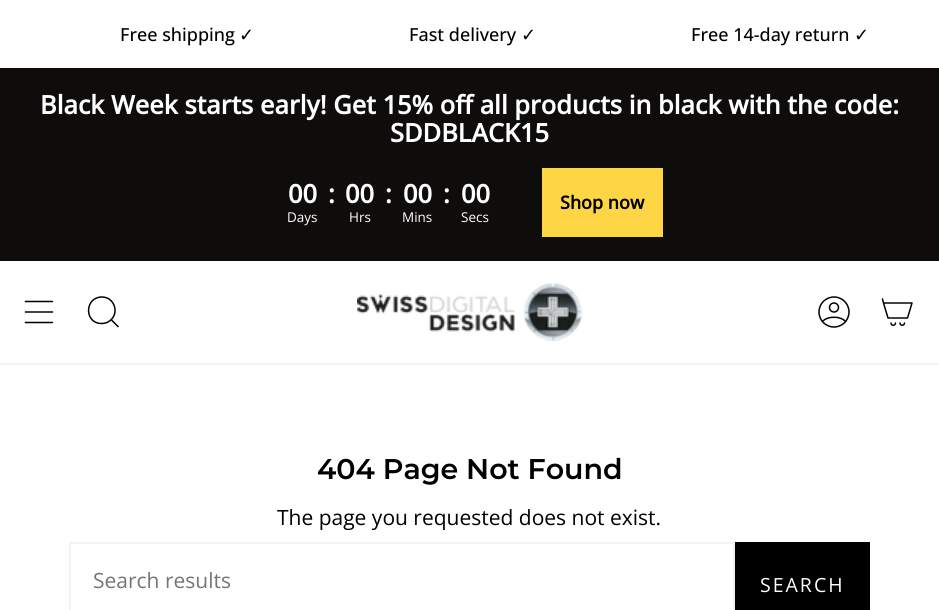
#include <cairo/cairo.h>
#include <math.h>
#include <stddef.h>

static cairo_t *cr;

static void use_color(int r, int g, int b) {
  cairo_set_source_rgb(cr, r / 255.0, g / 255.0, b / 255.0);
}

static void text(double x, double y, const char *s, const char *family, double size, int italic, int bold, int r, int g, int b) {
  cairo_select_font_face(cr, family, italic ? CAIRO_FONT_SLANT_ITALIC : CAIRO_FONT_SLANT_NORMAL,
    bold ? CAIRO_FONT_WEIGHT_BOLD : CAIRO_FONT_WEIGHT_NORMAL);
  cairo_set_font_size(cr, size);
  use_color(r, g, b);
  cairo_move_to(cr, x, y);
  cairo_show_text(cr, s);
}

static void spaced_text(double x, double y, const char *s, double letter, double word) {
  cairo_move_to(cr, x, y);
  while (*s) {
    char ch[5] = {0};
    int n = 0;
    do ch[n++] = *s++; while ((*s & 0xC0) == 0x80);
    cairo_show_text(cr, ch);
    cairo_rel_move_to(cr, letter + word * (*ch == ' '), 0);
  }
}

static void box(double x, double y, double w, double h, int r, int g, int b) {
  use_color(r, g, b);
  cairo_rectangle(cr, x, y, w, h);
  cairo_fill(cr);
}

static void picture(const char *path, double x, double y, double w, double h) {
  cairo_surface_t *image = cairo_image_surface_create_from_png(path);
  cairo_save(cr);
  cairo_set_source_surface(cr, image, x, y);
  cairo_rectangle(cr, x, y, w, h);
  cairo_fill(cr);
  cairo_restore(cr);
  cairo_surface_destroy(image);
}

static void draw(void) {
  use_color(255, 255, 255);
  cairo_paint(cr);
  box(0, 68, 939, 193, 15, 12, 12);
  box(542, 168, 121, 69, 254, 213, 69);
  box(0, 363, 939, 2, 243, 243, 243);
  cairo_new_path(cr);
  cairo_move_to(cr, 25.5, 301.5);
  cairo_line_to(cr, 52.5, 301.5);
  cairo_move_to(cr, 25.5, 312);
  cairo_line_to(cr, 52.5, 312);
  cairo_move_to(cr, 25.5, 322.5);
  cairo_line_to(cr, 52.5, 322.5);
  use_color(0, 0, 0);
  cairo_set_line_width(cr, 1.5);
  cairo_set_line_cap(cr, CAIRO_LINE_CAP_ROUND);
  cairo_set_line_join(cr, CAIRO_LINE_JOIN_ROUND);
  cairo_stroke(cr);
  cairo_new_path(cr);
  cairo_move_to(cr, 102, 297);
  cairo_curve_to(cr, 114.5, 297, 120, 313.5, 109.5, 321);
  cairo_curve_to(cr, 107, 323, 104, 323.5, 101, 323.5);
  cairo_curve_to(cr, 84, 323, 84.5, 297, 102, 297);
  cairo_close_path(cr);
  cairo_move_to(cr, 111, 319.5);
  cairo_line_to(cr, 118.5, 327);
  cairo_set_line_cap(cr, CAIRO_LINE_CAP_BUTT);
  cairo_set_line_join(cr, CAIRO_LINE_JOIN_MITER);
  cairo_stroke(cr);
  picture("img_01.png", 357, 283, 225, 58);
  picture("img_02.png", 818, 296, 32, 32);
  cairo_new_path(cr);
  cairo_move_to(cr, 883.5, 303);
  cairo_line_to(cr, 912, 303);
  cairo_line_to(cr, 907.5, 318);
  cairo_line_to(cr, 888, 318);
  cairo_close_path(cr);
  cairo_move_to(cr, 883.5, 303);
  cairo_line_to(cr, 882.5, 299);
  cairo_move_to(cr, 895.5, 323);
  cairo_curve_to(cr, 895.5, 326, 891, 326, 891, 323);
  cairo_move_to(cr, 904.5, 323);
  cairo_curve_to(cr, 904.5, 326, 900, 326, 900, 323);
  cairo_set_line_cap(cr, CAIRO_LINE_CAP_ROUND);
  cairo_set_line_join(cr, CAIRO_LINE_JOIN_ROUND);
  cairo_stroke(cr);
  cairo_rectangle(cr, 70, 543, 664, 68);
  use_color(243, 243, 243);
  cairo_set_line_width(cr, 2);
  cairo_set_line_cap(cr, CAIRO_LINE_CAP_BUTT);
  cairo_set_line_join(cr, CAIRO_LINE_JOIN_MITER);
  cairo_stroke(cr);
  box(735, 542, 135, 68, 0, 0, 0);
  text(120, 41, "Free shipping", "Open Sans Medium", 18, 0, 0, 0, 0, 0);
  text(239, 41, "✓", "DejaVu Sans", 18, 0, 0, 0, 0, 0);
  text(409, 41, "Fast delivery", "Open Sans Medium", 18, 0, 0, 0, 0, 0);
  text(521, 41, "✓", "DejaVu Sans", 18, 0, 0, 0, 0, 0);
  text(691, 41, "Free 14-day return", "Open Sans Medium", 18, 0, 0, 0, 0, 0);
  text(854, 41, "✓", "DejaVu Sans", 18, 0, 0, 0, 0, 0);
  text(40, 114, "Black Week starts early! Get 15% off all products in black with the code:", "Open Sans", 25.5, 0, 1, 255, 255, 255);
  text(390, 142, "SDDBLACK15", "Open Sans", 25.5, 0, 1, 255, 255, 255);
  text(288, 203, "00", "Open Sans", 25.5, 0, 1, 255, 255, 255);
  text(287, 222, "Days", "Open Sans", 13.5, 0, 0, 255, 255, 255);
  text(328, 203, ":", "Open Sans", 25.5, 0, 1, 255, 255, 255);
  text(345, 203, "00", "Open Sans", 25.5, 0, 1, 255, 255, 255);
  text(349, 222, "Hrs", "Open Sans", 13.5, 0, 0, 255, 255, 255);
  text(385, 203, ":", "Open Sans", 25.5, 0, 1, 255, 255, 255);
  text(403, 203, "00", "Open Sans", 25.5, 0, 1, 255, 255, 255);
  text(402, 222, "Mins", "Open Sans", 13.5, 0, 0, 255, 255, 255);
  text(443, 203, ":", "Open Sans", 25.5, 0, 1, 255, 255, 255);
  text(461, 203, "00", "Open Sans", 25.5, 0, 1, 255, 255, 255);
  text(461, 222, "Secs", "Open Sans", 13.5, 0, 0, 255, 255, 255);
  text(560, 209, "Shop now", "Open Sans", 18, 0, 1, 0, 0, 0);
  text(317, 479, "404 Page Not Found", "Montserrat SemiBold", 28.5, 0, 0, 0, 0, 0);
  text(277, 525, "The page you requested does not exist.", "Open Sans", 21, 0, 0, 0, 0, 0);
  text(93, 588, "Search results", "Open Sans", 21, 0, 0, 117, 117, 117);
  cairo_set_font_size(cr, 19.5);
  use_color(255, 255, 255);
  spaced_text(760, 592, "SEARCH", 2, 0);
}

int main(void) {
  cairo_surface_t *surface = cairo_image_surface_create(CAIRO_FORMAT_RGB24, 939, 610);
  cr = cairo_create(surface);
  cairo_font_options_t *options = cairo_font_options_create();
  cairo_font_options_set_hint_metrics(options, CAIRO_HINT_METRICS_OFF);
  cairo_font_options_set_hint_style(options, CAIRO_HINT_STYLE_NONE);
  cairo_set_font_options(cr, options);
  cairo_set_miter_limit(cr, 4);
  draw();
  cairo_surface_write_to_png(surface, "out.png");
  cairo_font_options_destroy(options);
  cairo_destroy(cr);
  cairo_surface_destroy(surface);
  return 0;
}
